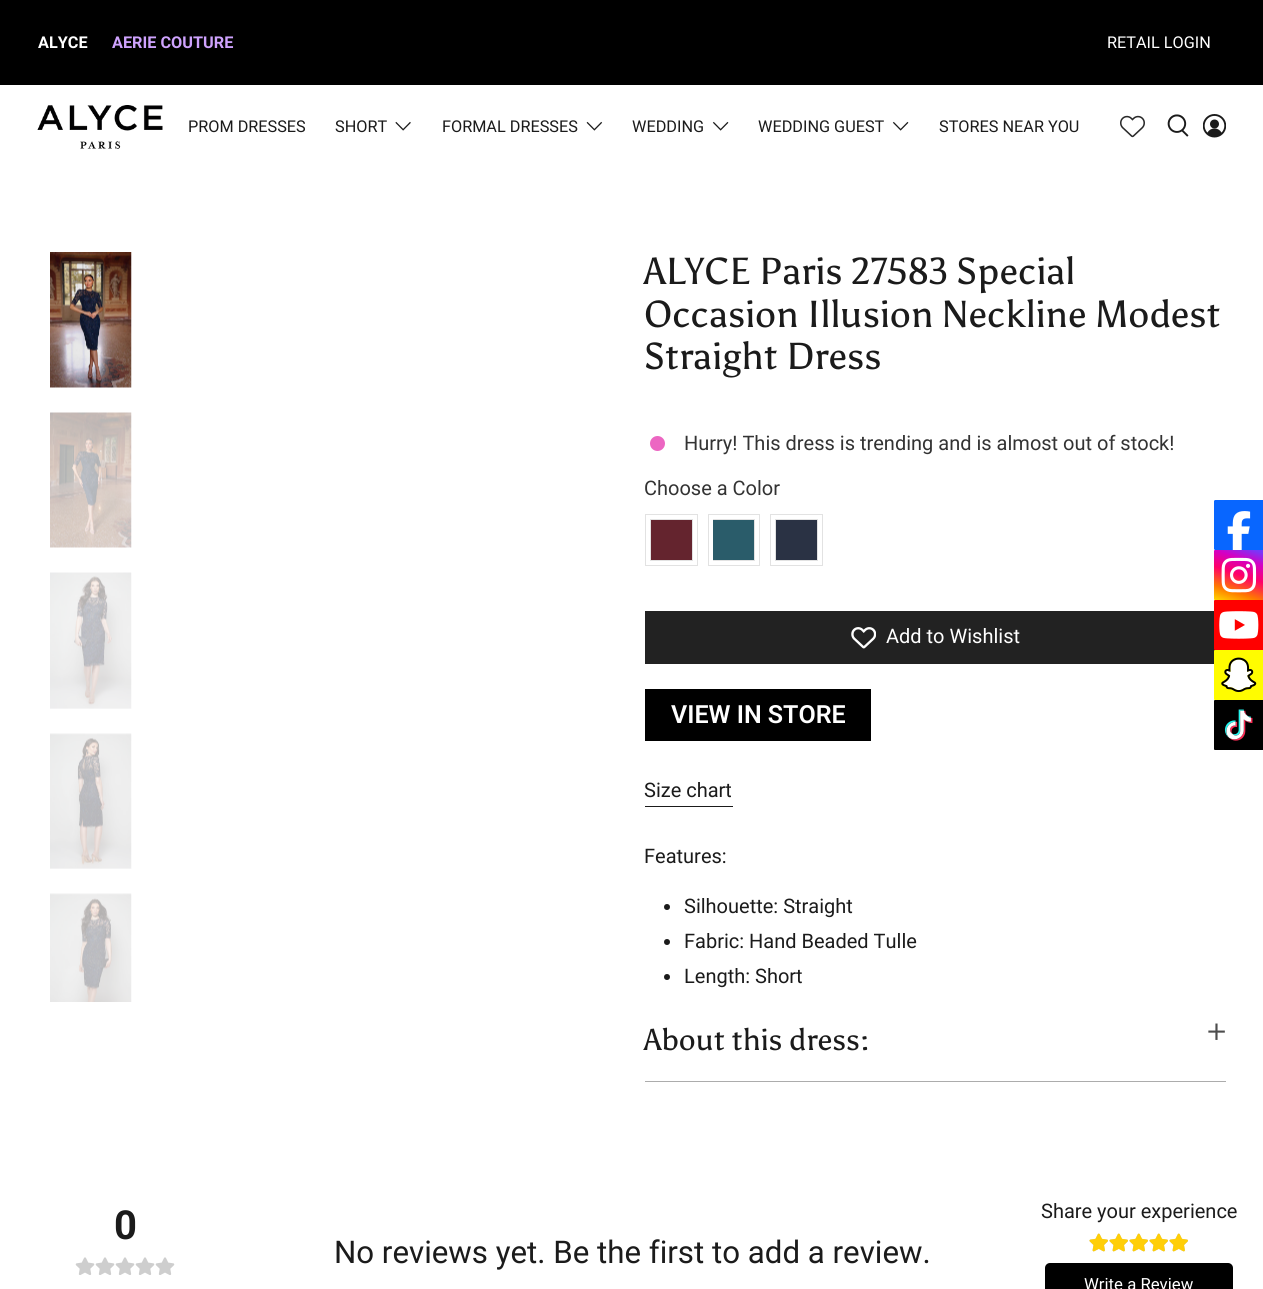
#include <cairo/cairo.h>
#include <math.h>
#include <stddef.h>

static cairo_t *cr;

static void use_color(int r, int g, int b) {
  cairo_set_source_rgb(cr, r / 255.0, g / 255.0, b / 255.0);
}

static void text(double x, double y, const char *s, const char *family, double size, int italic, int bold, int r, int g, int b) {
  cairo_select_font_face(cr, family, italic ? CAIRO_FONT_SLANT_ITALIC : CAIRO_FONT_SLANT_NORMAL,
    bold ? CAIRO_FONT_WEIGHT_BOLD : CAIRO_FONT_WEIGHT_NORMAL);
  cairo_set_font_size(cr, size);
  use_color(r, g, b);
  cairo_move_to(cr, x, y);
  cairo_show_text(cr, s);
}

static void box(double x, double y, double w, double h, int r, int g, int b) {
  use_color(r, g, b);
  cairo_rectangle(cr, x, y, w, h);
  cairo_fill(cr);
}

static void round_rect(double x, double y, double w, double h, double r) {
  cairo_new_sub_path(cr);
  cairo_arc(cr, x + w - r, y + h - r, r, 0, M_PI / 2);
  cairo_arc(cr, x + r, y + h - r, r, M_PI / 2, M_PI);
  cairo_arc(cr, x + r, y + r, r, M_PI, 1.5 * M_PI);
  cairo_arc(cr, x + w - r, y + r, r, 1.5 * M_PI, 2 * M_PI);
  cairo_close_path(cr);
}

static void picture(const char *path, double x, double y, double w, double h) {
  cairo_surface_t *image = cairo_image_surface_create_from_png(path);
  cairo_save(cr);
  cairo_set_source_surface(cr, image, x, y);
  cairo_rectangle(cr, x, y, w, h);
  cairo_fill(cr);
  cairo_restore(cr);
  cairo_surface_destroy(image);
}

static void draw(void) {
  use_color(255, 255, 255);
  cairo_paint(cr);
  box(0, 0, 1263, 85, 0, 0, 0);
  picture("img_01.png", 37, 105, 126, 44);
  picture("img_02.png", 395, 121, 16, 10);
  picture("img_03.png", 586, 121, 17, 10);
  picture("img_04.png", 712, 121, 17, 10);
  picture("img_04.png", 892, 121, 17, 10);
  picture("img_05.png", 1120, 115, 25, 23);
  picture("img_06.png", 1167, 114, 22, 23);
  picture("img_07.png", 1203, 114, 23, 24);
  picture("img_08.png", 50, 252, 82, 136);
  picture("img_09.png", 50, 412, 82, 136);
  picture("img_10.png", 50, 572, 82, 137);
  picture("img_11.png", 50, 733, 82, 136);
  picture("img_12.png", 50, 893, 82, 109);
  use_color(236, 102, 194);
  cairo_arc(cr, 657.5, 443.5, 7.5, 0, 2 * M_PI);
  cairo_fill(cr);
  cairo_rectangle(cr, 645.5, 514.5, 52, 51);
  use_color(226, 226, 226);
  cairo_set_line_width(cr, 1);
  cairo_stroke(cr);
  cairo_rectangle(cr, 650.5, 519.5, 42, 41);
  cairo_stroke(cr);
  box(651, 520, 41, 40, 100, 36, 46);
  cairo_rectangle(cr, 708.5, 514.5, 51, 51);
  use_color(226, 226, 226);
  cairo_stroke(cr);
  cairo_rectangle(cr, 713.5, 519.5, 41, 41);
  cairo_stroke(cr);
  box(713, 520, 41, 40, 42, 92, 106);
  cairo_rectangle(cr, 770.5, 514.5, 52, 51);
  use_color(226, 226, 226);
  cairo_stroke(cr);
  cairo_rectangle(cr, 775.5, 519.5, 42, 41);
  cairo_stroke(cr);
  box(776, 520, 41, 40, 42, 50, 68);
  box(645, 611, 570, 53, 34, 34, 34);
  picture("img_13.png", 851, 627, 25, 22);
  box(645, 689, 226, 52, 0, 0, 0);
  box(645, 806, 88, 1, 27, 27, 27);
  cairo_arc(cr, 667, 907, 3, 0, 2 * M_PI);
  cairo_fill(cr);
  cairo_arc(cr, 667, 942, 3, 0, 2 * M_PI);
  cairo_fill(cr);
  cairo_arc(cr, 667, 977, 3, 0, 2 * M_PI);
  cairo_fill(cr);
  box(645, 1081, 581, 1, 172, 172, 172);
  picture("img_14.png", 75, 1257, 20, 18);
  picture("img_14.png", 95, 1257, 20, 18);
  picture("img_14.png", 115, 1257, 20, 18);
  picture("img_14.png", 135, 1257, 20, 18);
  picture("img_14.png", 155, 1257, 20, 18);
  picture("img_15.png", 1089, 1233, 19, 19);
  picture("img_15.png", 1109, 1233, 19, 19);
  picture("img_15.png", 1129, 1233, 19, 19);
  picture("img_15.png", 1149, 1233, 19, 19);
  picture("img_15.png", 1169, 1233, 19, 19);
  picture("img_16.png", 1089, 1233, 19, 19);
  picture("img_16.png", 1109, 1233, 19, 19);
  picture("img_16.png", 1129, 1233, 19, 19);
  picture("img_16.png", 1149, 1233, 19, 19);
  picture("img_16.png", 1169, 1233, 19, 19);
  use_color(0, 0, 0);
  round_rect(1045, 1263, 188, 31, 5);
  cairo_fill(cr);
  picture("img_17.png", 1214, 500, 49, 50);
  picture("img_18.png", 1214, 550, 49, 50);
  picture("img_19.png", 1214, 600, 49, 50);
  picture("img_20.png", 1214, 650, 49, 50);
  picture("img_21.png", 1214, 700, 49, 50);
  text(38, 48, "ALYCE", "Roboto", 16.25, 0, 1, 255, 255, 255);
  text(112, 48, "AERIE COUTURE", "Roboto", 16.25, 0, 1, 206, 162, 253);
  text(1107, 48, "RETAIL LOGIN", "Roboto", 16.25, 0, 0, 255, 255, 255);
  text(188, 132, "PROM DRESSES", "Roboto", 16.25, 0, 0, 27, 27, 27);
  text(335, 132, "SHORT", "Roboto", 16.25, 0, 0, 27, 27, 27);
  text(442, 132, "FORMAL DRESSES", "Roboto", 16.25, 0, 0, 27, 27, 27);
  text(632, 132, "WEDDING", "Roboto", 16.25, 0, 0, 27, 27, 27);
  text(758, 132, "WEDDING GUEST", "Roboto", 16.25, 0, 0, 27, 27, 27);
  text(939, 132, "STORES NEAR YOU", "Roboto", 16.25, 0, 0, 27, 27, 27);
  text(644, 284, "ALYCE Paris 27583 Special", "Asul", 37.5, 0, 0, 27, 27, 27);
  text(644, 327, "Occasion Illusion Neckline Modest", "Asul", 37.5, 0, 0, 27, 27, 27);
  text(644, 369, "Straight Dress", "Asul", 37.5, 0, 0, 27, 27, 27);
  text(684, 450, "Hurry! This dress is trending and is almost out of stock!", "Roboto", 20, 0, 0, 51, 51, 51);
  text(644, 495, "Choose a Color", "Roboto", 20, 0, 0, 51, 51, 51);
  text(886, 643, "Add to Wishlist", "Roboto", 20, 0, 0, 255, 255, 255);
  text(671, 723, "VIEW IN STORE", "Roboto SemiBold", 25, 0, 0, 255, 255, 255);
  text(644, 797, "Size chart", "Roboto", 20, 0, 0, 27, 27, 27);
  text(644, 863, "Features:", "Roboto", 20, 0, 0, 27, 27, 27);
  text(684, 913, "Silhouette: Straight", "Roboto", 20, 0, 0, 27, 27, 27);
  text(684, 948, "Fabric: Hand Beaded Tulle", "Roboto", 20, 0, 0, 27, 27, 27);
  text(684, 983, "Length: Short", "Roboto", 20, 0, 0, 27, 27, 27);
  text(644, 1050, "About this dress:", "Asul", 30, 0, 0, 27, 27, 27);
  text(1207, 1042, "+", "Asul", 32, 0, 0, 77, 77, 77);
  text(114, 1239, "0", "Roboto", 40, 0, 1, 27, 27, 27);
  text(1041, 1218, "Share your experience", "Roboto", 20, 0, 0, 27, 27, 27);
  text(1084, 1290, "Write a Review", "Roboto", 16.75, 0, 0, 255, 255, 255);
  text(334, 1263, "No reviews yet. Be the first to add a review.", "Roboto", 31.25, 0, 0, 27, 27, 27);
}

int main(void) {
  cairo_surface_t *surface = cairo_image_surface_create(CAIRO_FORMAT_RGB24, 1263, 1289);
  cr = cairo_create(surface);
  cairo_font_options_t *options = cairo_font_options_create();
  cairo_font_options_set_hint_metrics(options, CAIRO_HINT_METRICS_OFF);
  cairo_font_options_set_hint_style(options, CAIRO_HINT_STYLE_NONE);
  cairo_set_font_options(cr, options);
  cairo_set_miter_limit(cr, 4);
  draw();
  cairo_surface_write_to_png(surface, "out.png");
  cairo_font_options_destroy(options);
  cairo_destroy(cr);
  cairo_surface_destroy(surface);
  return 0;
}
